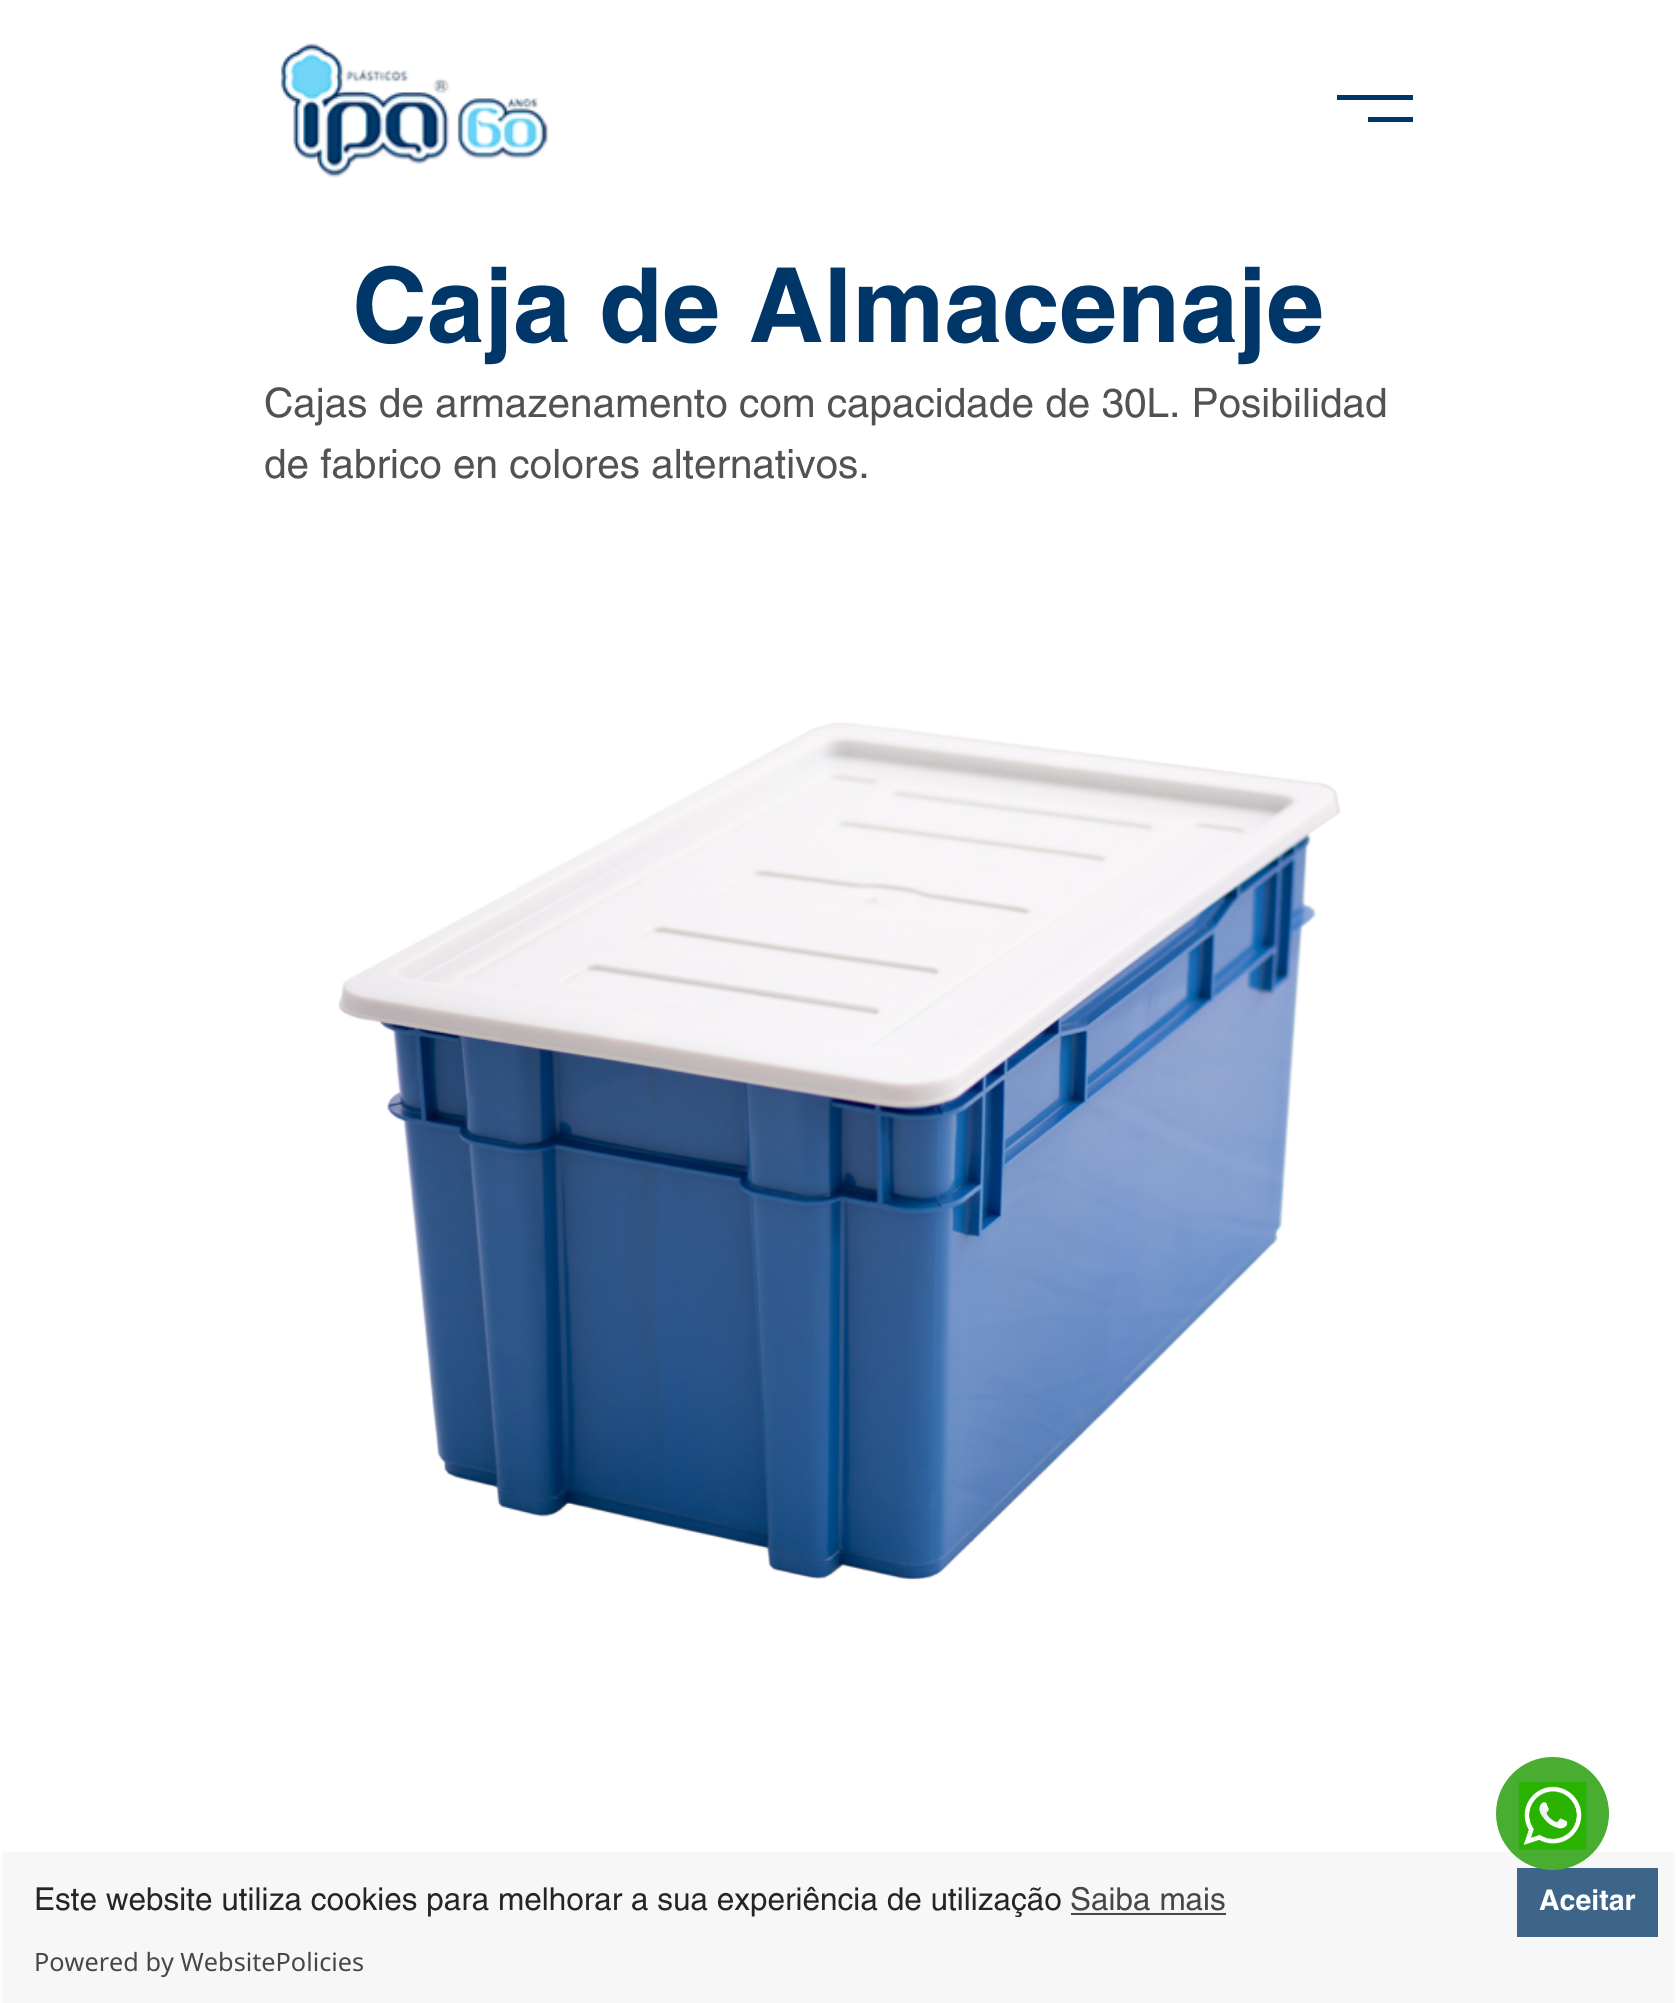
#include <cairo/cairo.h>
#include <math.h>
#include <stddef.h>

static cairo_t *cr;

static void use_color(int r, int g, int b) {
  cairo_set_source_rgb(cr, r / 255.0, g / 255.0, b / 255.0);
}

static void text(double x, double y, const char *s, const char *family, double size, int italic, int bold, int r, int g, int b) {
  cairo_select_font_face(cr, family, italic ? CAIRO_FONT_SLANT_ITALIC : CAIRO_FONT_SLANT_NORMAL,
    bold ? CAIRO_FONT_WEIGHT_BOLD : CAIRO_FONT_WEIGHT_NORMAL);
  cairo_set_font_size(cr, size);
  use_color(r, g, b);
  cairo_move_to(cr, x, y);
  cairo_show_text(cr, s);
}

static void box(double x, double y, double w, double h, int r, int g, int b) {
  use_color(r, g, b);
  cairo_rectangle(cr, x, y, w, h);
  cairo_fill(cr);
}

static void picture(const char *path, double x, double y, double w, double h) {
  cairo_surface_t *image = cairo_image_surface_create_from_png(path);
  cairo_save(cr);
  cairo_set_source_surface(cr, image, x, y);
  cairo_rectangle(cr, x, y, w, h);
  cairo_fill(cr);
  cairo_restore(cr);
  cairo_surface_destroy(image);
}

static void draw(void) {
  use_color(255, 255, 255);
  cairo_paint(cr);
  picture("img_01.png", 280, 43, 269, 135);
  box(1337, 95, 76, 5, 1, 54, 104);
  box(1368, 117, 45, 5, 1, 54, 104);
  picture("img_02.png", 338, 722, 1003, 859);
  cairo_set_source_rgba(cr, 0.965, 0.965, 0.965, 0.85);
  cairo_rectangle(cr, 0, 1850, 1676, 153);
  cairo_fill(cr);
  cairo_rectangle(cr, 1, 1851, 1674, 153);
  cairo_set_source_rgba(cr, 1, 1, 1, 0.85);
  cairo_stroke(cr);
  box(1517, 1868, 141, 69, 60, 101, 137);
  use_color(73, 173, 50);
  cairo_arc(cr, 1552.5, 1813.5, 56.5, 0, 2 * M_PI);
  cairo_fill(cr);
  picture("img_03.png", 1518, 1782, 69, 68);
  box(1071, 1913, 155, 2, 71, 71, 71);
  text(352, 342, "Caja de Almacenaje", "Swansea", 103.5, 0, 1, 1, 54, 104);
  text(264, 417, "Cajas de armazenamento com capacidade de 30L. Posibilidad", "Swansea", 40.5, 0, 0, 82, 82, 82);
  text(264, 478, "de fabrico en colores alternativos.", "Swansea", 40.5, 0, 0, 82, 82, 82);
  text(34, 1910, "Este website utiliza cookies para melhorar a sua experiência de utilização", "Swansea", 31.5, 0, 0, 37, 37, 37);
  text(1070, 1910, "Saiba mais", "Swansea", 31.5, 0, 0, 71, 71, 71);
  text(1539, 1910, "Aceitar", "Swansea", 28.5, 0, 1, 255, 255, 255);
  text(34, 1971, "Powered by WebsitePolicies", "Noto Sans", 25.25, 0, 0, 71, 71, 71);
}

int main(void) {
  cairo_surface_t *surface = cairo_image_surface_create(CAIRO_FORMAT_RGB24, 1676, 2003);
  cr = cairo_create(surface);
  cairo_font_options_t *options = cairo_font_options_create();
  cairo_font_options_set_hint_metrics(options, CAIRO_HINT_METRICS_OFF);
  cairo_font_options_set_hint_style(options, CAIRO_HINT_STYLE_NONE);
  cairo_set_font_options(cr, options);
  cairo_set_miter_limit(cr, 4);
  draw();
  cairo_surface_write_to_png(surface, "out.png");
  cairo_font_options_destroy(options);
  cairo_destroy(cr);
  cairo_surface_destroy(surface);
  return 0;
}
